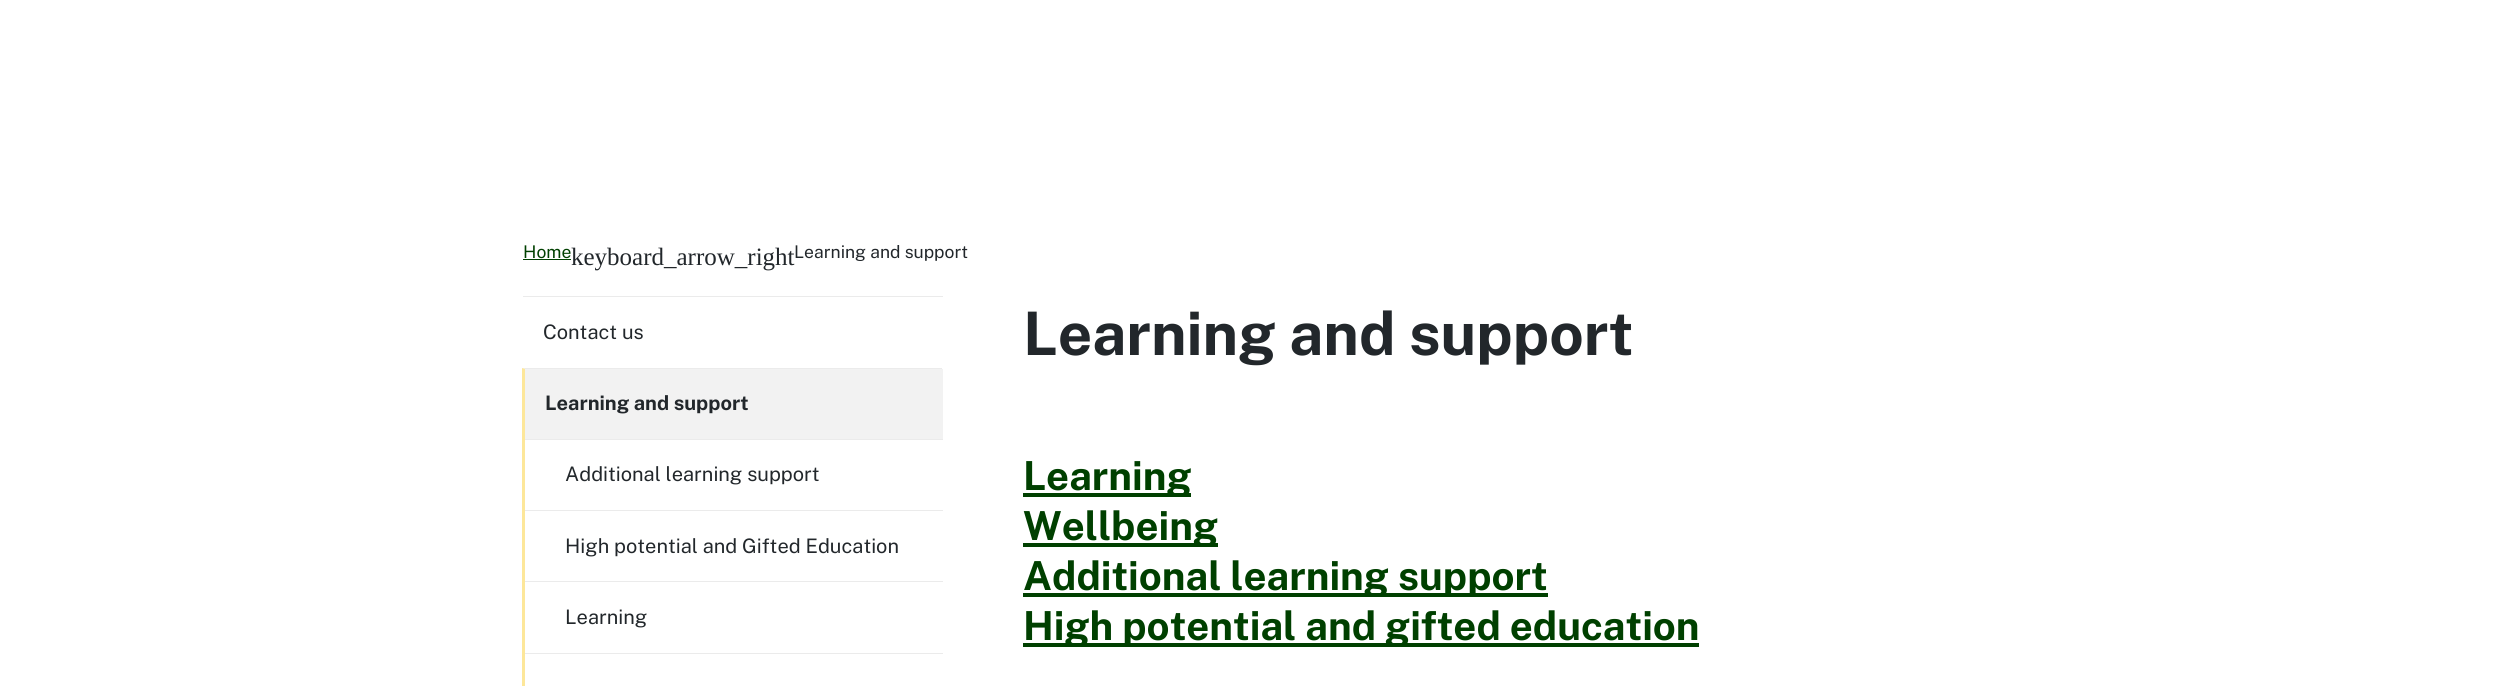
#include <cairo/cairo.h>
#include <math.h>
#include <stddef.h>

static cairo_t *cr;

static void use_color(int r, int g, int b) {
  cairo_set_source_rgb(cr, r / 255.0, g / 255.0, b / 255.0);
}

static void text(double x, double y, const char *s, const char *family, double size, int italic, int bold, int r, int g, int b) {
  cairo_select_font_face(cr, family, italic ? CAIRO_FONT_SLANT_ITALIC : CAIRO_FONT_SLANT_NORMAL,
    bold ? CAIRO_FONT_WEIGHT_BOLD : CAIRO_FONT_WEIGHT_NORMAL);
  cairo_set_font_size(cr, size);
  use_color(r, g, b);
  cairo_move_to(cr, x, y);
  cairo_show_text(cr, s);
}

static void box(double x, double y, double w, double h, int r, int g, int b) {
  use_color(r, g, b);
  cairo_rectangle(cr, x, y, w, h);
  cairo_fill(cr);
}

static void draw(void) {
  use_color(255, 255, 255);
  cairo_paint(cr);
  box(523, 259, 48, 1, 0, 64, 0);
  box(523, 296, 420, 1, 235, 235, 235);
  cairo_new_path(cr);
  cairo_move_to(cr, 522, 368);
  cairo_line_to(cr, 942, 368);
  cairo_line_to(cr, 942, 369);
  cairo_line_to(cr, 525, 369);
  cairo_close_path(cr);
  cairo_fill(cr);
  use_color(253, 231, 154);
  cairo_new_path(cr);
  cairo_move_to(cr, 522, 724);
  cairo_line_to(cr, 522, 368);
  cairo_line_to(cr, 525, 369);
  cairo_line_to(cr, 525, 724);
  cairo_close_path(cr);
  cairo_fill(cr);
  box(525, 369, 418, 70, 242, 242, 242);
  box(525, 439, 418, 1, 235, 235, 235);
  box(525, 510, 418, 1, 235, 235, 235);
  box(525, 581, 418, 1, 235, 235, 235);
  box(525, 653, 418, 1, 235, 235, 235);
  box(1023, 493, 168, 4, 0, 64, 0);
  box(1023, 543, 195, 4, 0, 64, 0);
  box(1023, 593, 525, 4, 0, 64, 0);
  box(1023, 643, 676, 4, 0, 64, 0);
  text(523, 258, "Home", "Public Sans", 17.5, 0, 0, 0, 64, 0);
  text(571, 265, "keyboard_arrow_right", "Liberation Serif", 25, 0, 0, 34, 39, 43);
  text(794, 258, "Learning and support", "Public Sans", 17.5, 0, 0, 34, 39, 43);
  text(543, 339, "Contact us", "Public Sans", 20, 0, 0, 34, 39, 43);
  text(545, 410, "Learning and support", "Public Sans", 20, 0, 1, 34, 39, 43);
  text(565, 481, "Additional learning support", "Public Sans", 20, 0, 0, 34, 39, 43);
  text(565, 553, "High potential and Gifted Education", "Public Sans", 20, 0, 0, 34, 39, 43);
  text(565, 624, "Learning", "Public Sans", 20, 0, 0, 34, 39, 43);
  text(1023, 355, "Learning and support", "Public Sans", 60, 0, 1, 34, 39, 43);
  text(1023, 490, "Learning", "Public Sans", 40, 0, 1, 0, 64, 0);
  text(1023, 540, "Wellbeing", "Public Sans", 40, 0, 1, 0, 64, 0);
  text(1023, 590, "Additional learning support", "Public Sans", 40, 0, 1, 0, 64, 0);
  text(1023, 640, "High potential and gifted education", "Public Sans", 40, 0, 1, 0, 64, 0);
}

int main(void) {
  cairo_surface_t *surface = cairo_image_surface_create(CAIRO_FORMAT_RGB24, 2505, 686);
  cr = cairo_create(surface);
  cairo_font_options_t *options = cairo_font_options_create();
  cairo_font_options_set_hint_metrics(options, CAIRO_HINT_METRICS_OFF);
  cairo_font_options_set_hint_style(options, CAIRO_HINT_STYLE_NONE);
  cairo_set_font_options(cr, options);
  cairo_set_miter_limit(cr, 4);
  draw();
  cairo_surface_write_to_png(surface, "out.png");
  cairo_font_options_destroy(options);
  cairo_destroy(cr);
  cairo_surface_destroy(surface);
  return 0;
}
